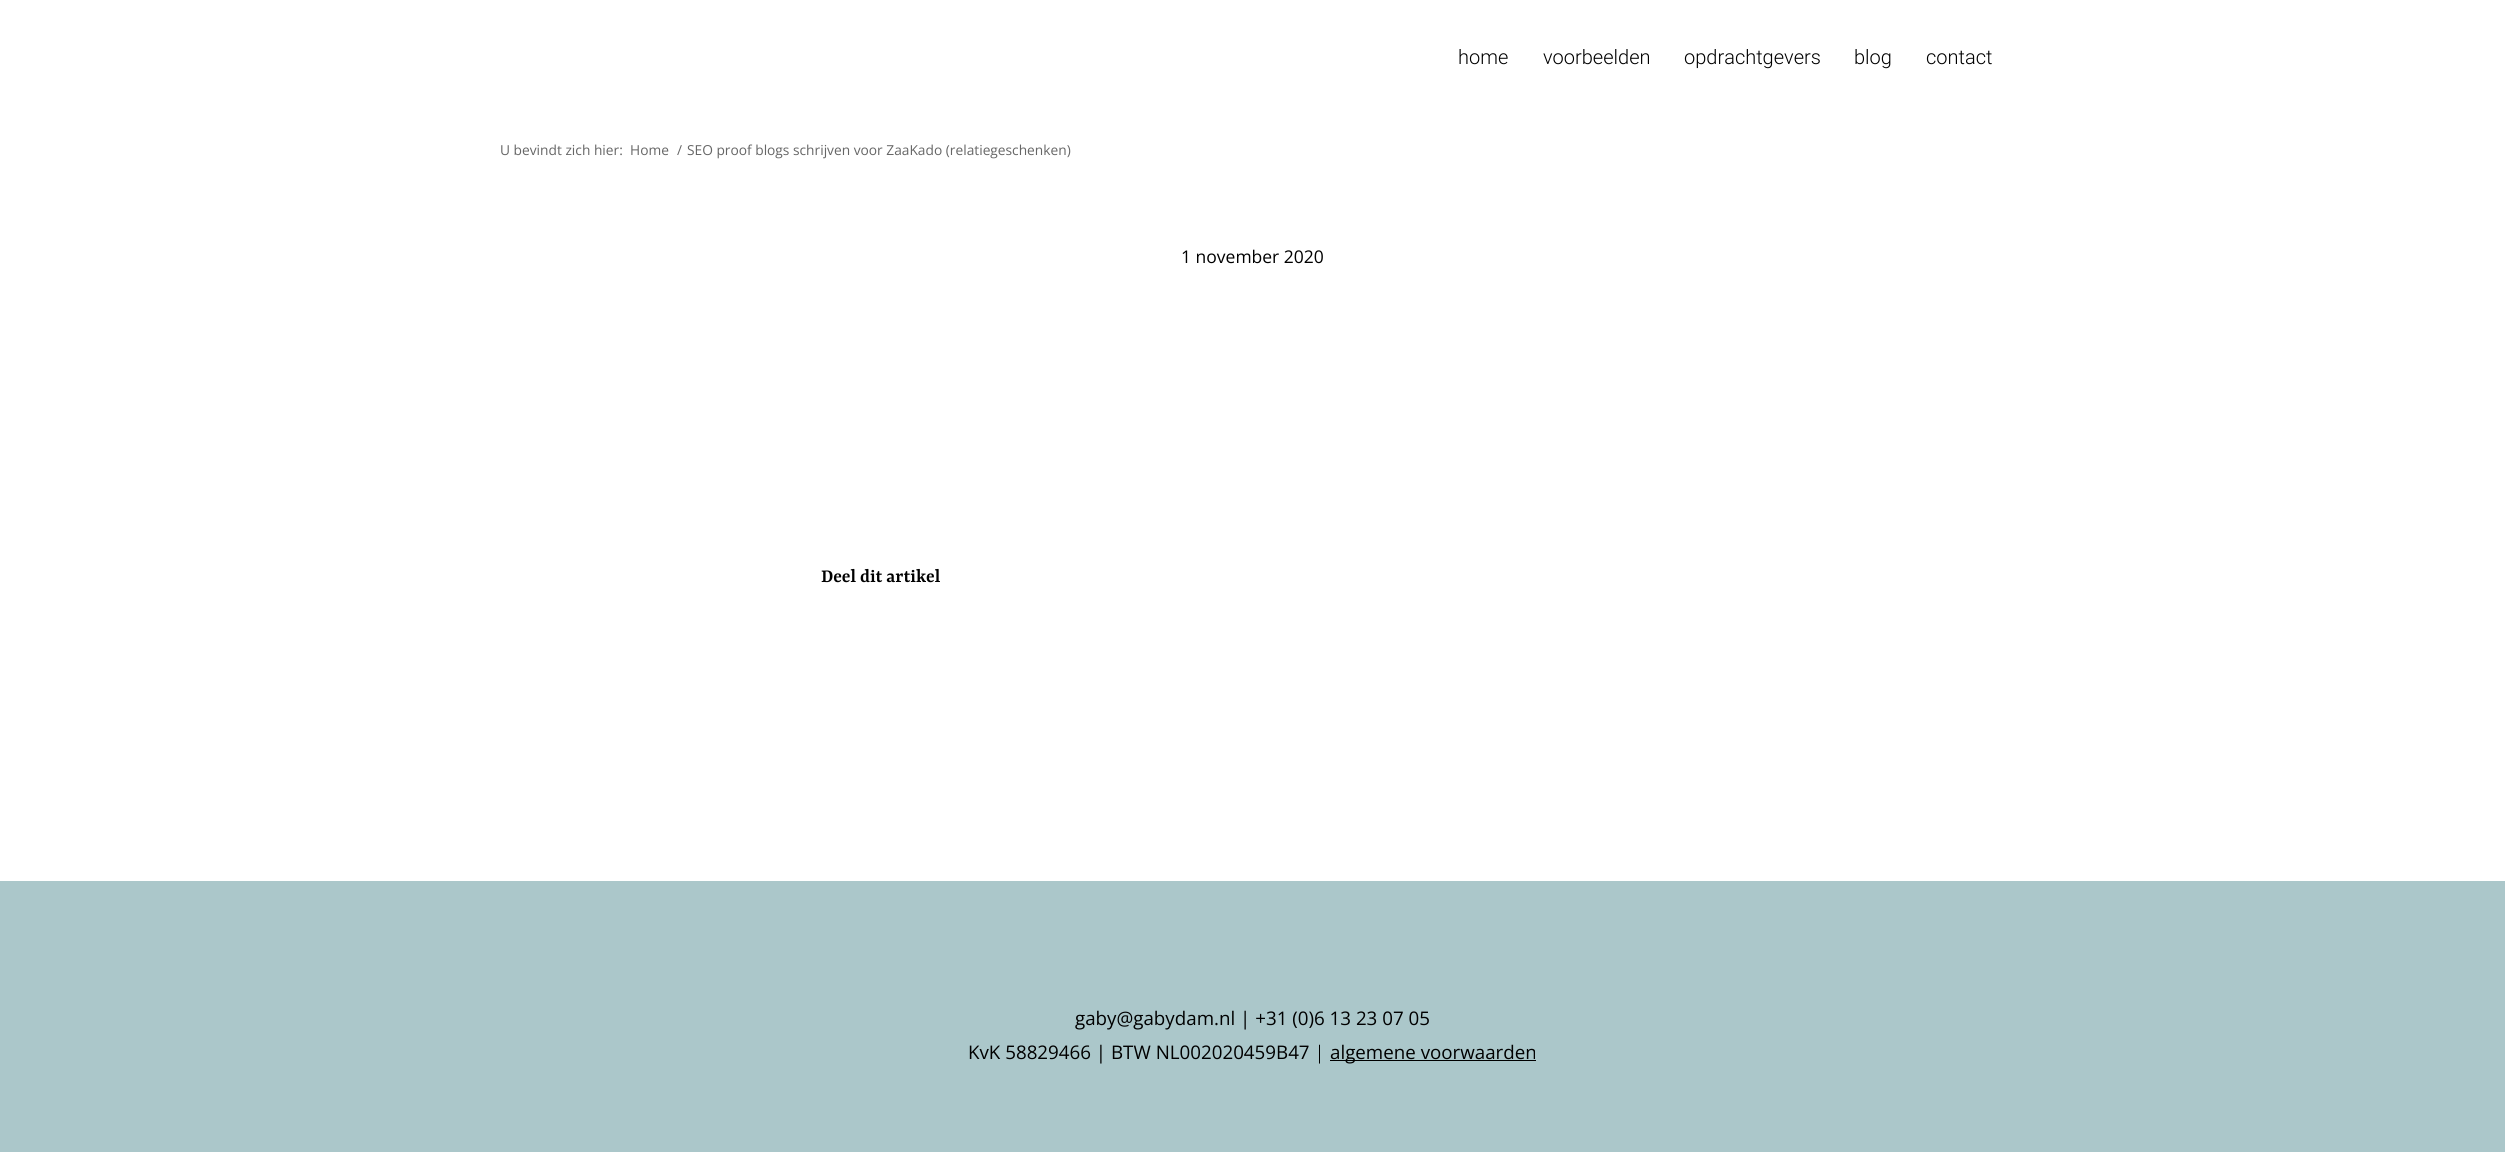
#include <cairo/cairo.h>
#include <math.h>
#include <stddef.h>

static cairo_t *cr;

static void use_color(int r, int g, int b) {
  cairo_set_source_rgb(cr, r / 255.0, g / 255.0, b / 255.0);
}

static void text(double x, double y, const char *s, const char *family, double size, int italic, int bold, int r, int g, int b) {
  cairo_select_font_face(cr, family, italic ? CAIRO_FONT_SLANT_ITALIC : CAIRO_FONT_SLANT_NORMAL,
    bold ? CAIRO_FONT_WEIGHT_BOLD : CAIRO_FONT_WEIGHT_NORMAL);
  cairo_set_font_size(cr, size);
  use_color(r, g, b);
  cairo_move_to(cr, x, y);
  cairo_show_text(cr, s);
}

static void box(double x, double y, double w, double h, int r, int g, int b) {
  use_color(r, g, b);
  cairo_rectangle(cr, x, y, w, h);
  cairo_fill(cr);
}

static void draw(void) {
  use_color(255, 255, 255);
  cairo_paint(cr);
  box(0, 881, 2505, 271, 171, 199, 202);
  box(1330, 1060, 206, 1, 0, 0, 0);
  text(1458, 64, "home", "Roboto Light", 20, 0, 0, 0, 0, 0);
  text(1543, 64, "voorbeelden", "Roboto Light", 20, 0, 0, 0, 0, 0);
  text(1684, 64, "opdrachtgevers", "Roboto Light", 20, 0, 0, 0, 0, 0);
  text(1854, 64, "blog", "Roboto Light", 20, 0, 0, 0, 0, 0);
  text(1926, 64, "contact", "Roboto Light", 20, 0, 0, 0, 0, 0);
  text(500, 155, "U bevindt zich hier:", "Open Sans", 13.75, 0, 0, 102, 102, 102);
  text(630, 155, "Home", "Open Sans", 13.75, 0, 0, 102, 102, 102);
  text(677, 155, "/", "Open Sans", 13.75, 0, 0, 102, 102, 102);
  text(687, 155, "SEO proof blogs schrijven voor ZaaKado (relatiegeschenken)", "Open Sans", 13.75, 0, 0, 102, 102, 102);
  text(1181, 263, "1 november 2020", "Open Sans", 17.5, 0, 0, 0, 0, 0);
  text(821, 582, "Deel dit artikel", "Rasa SemiBold", 20, 0, 0, 0, 0, 0);
  text(1075, 1025, "gaby@gabydam.nl | +31 (0)6 13 23 07 05", "Open Sans", 18.75, 0, 0, 0, 0, 0);
  text(968, 1059, "KvK 58829466 | BTW NL002020459B47 |", "Open Sans", 18.75, 0, 0, 0, 0, 0);
  text(1330, 1059, "algemene voorwaarden", "Open Sans", 18.75, 0, 0, 0, 0, 0);
}

int main(void) {
  cairo_surface_t *surface = cairo_image_surface_create(CAIRO_FORMAT_RGB24, 2505, 1152);
  cr = cairo_create(surface);
  cairo_font_options_t *options = cairo_font_options_create();
  cairo_font_options_set_hint_metrics(options, CAIRO_HINT_METRICS_OFF);
  cairo_font_options_set_hint_style(options, CAIRO_HINT_STYLE_NONE);
  cairo_set_font_options(cr, options);
  cairo_set_miter_limit(cr, 4);
  draw();
  cairo_surface_write_to_png(surface, "out.png");
  cairo_font_options_destroy(options);
  cairo_destroy(cr);
  cairo_surface_destroy(surface);
  return 0;
}
